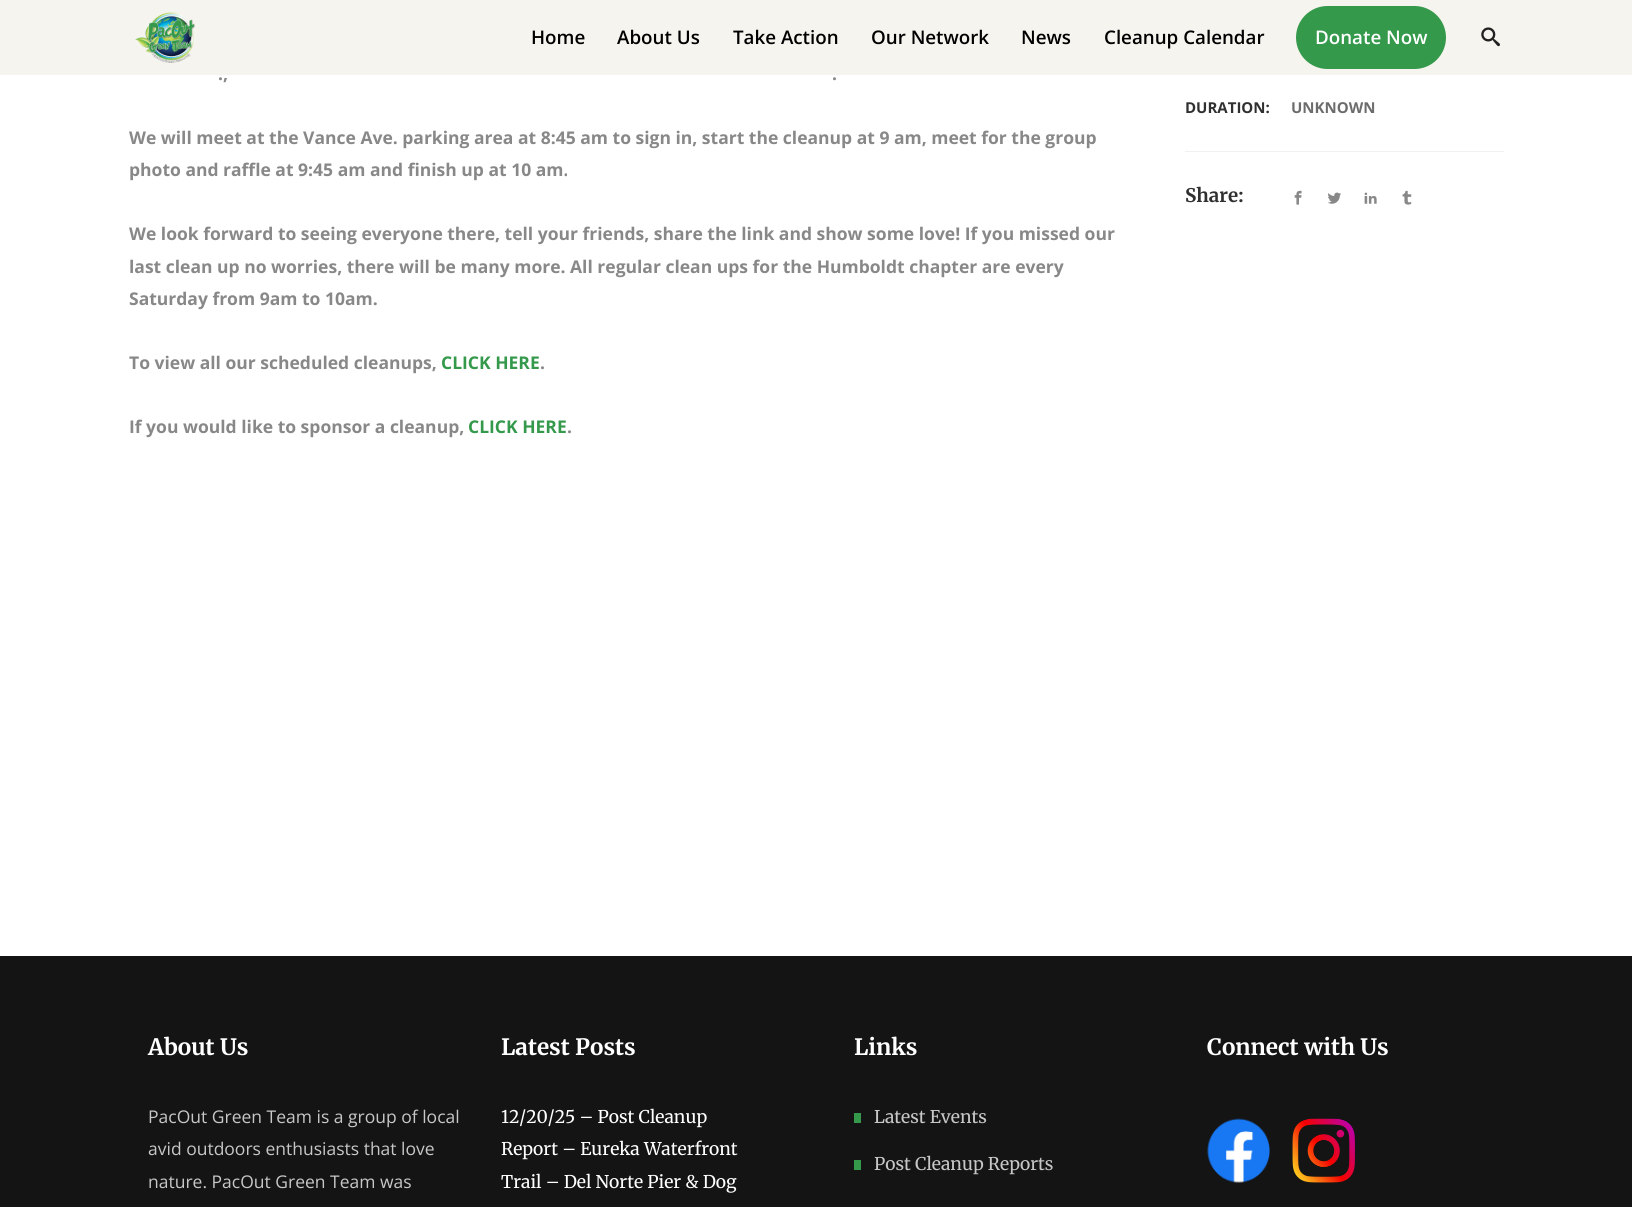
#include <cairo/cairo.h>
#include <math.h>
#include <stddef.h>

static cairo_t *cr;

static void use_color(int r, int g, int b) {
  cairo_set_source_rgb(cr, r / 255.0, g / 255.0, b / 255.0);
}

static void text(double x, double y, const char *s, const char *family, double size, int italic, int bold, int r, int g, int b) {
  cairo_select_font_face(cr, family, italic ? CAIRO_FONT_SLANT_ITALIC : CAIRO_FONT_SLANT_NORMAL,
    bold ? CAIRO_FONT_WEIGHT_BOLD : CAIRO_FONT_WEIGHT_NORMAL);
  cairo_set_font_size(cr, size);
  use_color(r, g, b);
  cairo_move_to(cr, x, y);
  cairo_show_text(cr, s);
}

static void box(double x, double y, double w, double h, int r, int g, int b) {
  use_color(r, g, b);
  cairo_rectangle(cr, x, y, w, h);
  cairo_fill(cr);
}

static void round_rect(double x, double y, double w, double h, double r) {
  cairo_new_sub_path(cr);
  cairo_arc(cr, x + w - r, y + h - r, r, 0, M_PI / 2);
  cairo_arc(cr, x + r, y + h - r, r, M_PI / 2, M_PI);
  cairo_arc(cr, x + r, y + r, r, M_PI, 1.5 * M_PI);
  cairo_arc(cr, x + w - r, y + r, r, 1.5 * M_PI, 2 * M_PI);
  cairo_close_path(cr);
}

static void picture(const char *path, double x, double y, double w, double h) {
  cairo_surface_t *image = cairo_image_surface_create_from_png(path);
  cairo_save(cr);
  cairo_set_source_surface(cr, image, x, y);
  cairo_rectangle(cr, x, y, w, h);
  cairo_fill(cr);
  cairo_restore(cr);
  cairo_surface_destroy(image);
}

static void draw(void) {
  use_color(255, 255, 255);
  cairo_paint(cr);
  box(0, 0, 1632, 75, 246, 244, 238);
  picture("img_01.png", 135, 12, 60, 51);
  use_color(52, 153, 75);
  round_rect(1296, 6, 150, 63, 31.5);
  cairo_fill(cr);
  picture("img_02.png", 1481, 27, 19, 20);
  box(1185, 151, 319, 1, 241, 241, 241);
  picture("img_03.png", 1294, 190, 8, 15);
  picture("img_04.png", 1327, 192, 14, 12);
  picture("img_05.png", 1364, 192, 13, 12);
  picture("img_06.png", 1402, 190, 10, 15);
  box(0, 956, 1632, 251, 20, 20, 20);
  box(854, 1113, 7, 10, 52, 153, 75);
  box(854, 1160, 7, 10, 52, 153, 75);
  picture("img_07.png", 1207, 1118, 63, 65);
  picture("img_08.png", 1292, 1118, 63, 65);
  text(531, 44, "Home", "Open Sans SemiBold", 18.75, 0, 0, 0, 0, 0);
  text(617, 44, "About Us", "Open Sans SemiBold", 18.75, 0, 0, 0, 0, 0);
  text(733, 44, "Take Action", "Open Sans SemiBold", 18.75, 0, 0, 0, 0, 0);
  text(871, 44, "Our Network", "Open Sans SemiBold", 18.75, 0, 0, 0, 0, 0);
  text(1021, 44, "News", "Open Sans SemiBold", 18.75, 0, 0, 0, 0, 0);
  text(1104, 44, "Cleanup Calendar", "Open Sans SemiBold", 18.75, 0, 0, 0, 0, 0);
  text(1315, 44, "Donate Now", "Open Sans SemiBold", 18.75, 0, 0, 255, 255, 255);
  text(218, 80, ".,", "Open Sans", 17.5, 0, 1, 136, 136, 136);
  text(832, 80, ".", "Open Sans", 17.5, 0, 1, 136, 136, 136);
  text(129, 144, "We will meet at the Vance Ave. parking area at 8:45 am to sign in, start the cleanup at 9 am, meet for the group", "Open Sans", 17.5, 0, 1, 136, 136, 136);
  text(129, 176, "photo and raffle at 9:45 am and finish up at 10 am.", "Open Sans", 17.5, 0, 1, 136, 136, 136);
  text(129, 240, "We look forward to seeing everyone there, tell your friends, share the link and show some love! If you missed our", "Open Sans", 17.5, 0, 1, 136, 136, 136);
  text(129, 273, "last clean up no worries, there will be many more. All regular clean ups for the Humboldt chapter are every", "Open Sans", 17.5, 0, 1, 136, 136, 136);
  text(129, 305, "Saturday from 9am to 10am.", "Open Sans", 17.5, 0, 1, 136, 136, 136);
  text(129, 369, "To view all our scheduled cleanups,", "Open Sans", 17.5, 0, 1, 136, 136, 136);
  text(441, 369, "CLICK HERE", "Open Sans", 17.5, 0, 1, 52, 153, 75);
  text(540, 369, ".", "Open Sans", 17.5, 0, 1, 136, 136, 136);
  text(129, 433, "If you would like to sponsor a cleanup,", "Open Sans", 17.5, 0, 1, 136, 136, 136);
  text(468, 433, "CLICK HERE", "Open Sans", 17.5, 0, 1, 52, 153, 75);
  text(567, 433, ".", "Open Sans", 17.5, 0, 1, 136, 136, 136);
  text(1185, 113, "DURATION:", "Open Sans", 15, 0, 1, 48, 48, 48);
  text(1291, 113, "UNKNOWN", "Open Sans", 15, 0, 1, 108, 108, 108);
  text(1185, 202, "Share:", "Merriweather", 18.75, 0, 1, 48, 48, 48);
  text(148, 1055, "About Us", "Merriweather", 22.5, 0, 1, 255, 255, 255);
  text(148, 1123, "PacOut Green Team is a group of local", "Open Sans", 17.5, 0, 0, 199, 199, 199);
  text(148, 1155, "avid outdoors enthusiasts that love", "Open Sans", 17.5, 0, 0, 199, 199, 199);
  text(148, 1188, "nature. PacOut Green Team was", "Open Sans", 17.5, 0, 0, 199, 199, 199);
  text(501, 1055, "Latest Posts", "Merriweather", 22.5, 0, 1, 255, 255, 255);
  text(501, 1123, "12/20/25 – Post Cleanup", "Merriweather", 17.5, 0, 0, 255, 255, 255);
  text(501, 1155, "Report – Eureka Waterfront", "Merriweather", 17.5, 0, 0, 255, 255, 255);
  text(501, 1188, "Trail – Del Norte Pier & Dog", "Merriweather", 17.5, 0, 0, 255, 255, 255);
  text(854, 1055, "Links", "Merriweather", 22.5, 0, 1, 255, 255, 255);
  text(874, 1123, "Latest Events", "Merriweather", 17.5, 0, 0, 199, 199, 199);
  text(874, 1170, "Post Cleanup Reports", "Merriweather", 17.5, 0, 0, 199, 199, 199);
  text(1207, 1055, "Connect with Us", "Merriweather", 22.5, 0, 1, 255, 255, 255);
}

int main(void) {
  cairo_surface_t *surface = cairo_image_surface_create(CAIRO_FORMAT_RGB24, 1632, 1207);
  cr = cairo_create(surface);
  cairo_font_options_t *options = cairo_font_options_create();
  cairo_font_options_set_hint_metrics(options, CAIRO_HINT_METRICS_OFF);
  cairo_font_options_set_hint_style(options, CAIRO_HINT_STYLE_NONE);
  cairo_set_font_options(cr, options);
  cairo_set_miter_limit(cr, 4);
  draw();
  cairo_surface_write_to_png(surface, "out.png");
  cairo_font_options_destroy(options);
  cairo_destroy(cr);
  cairo_surface_destroy(surface);
  return 0;
}
